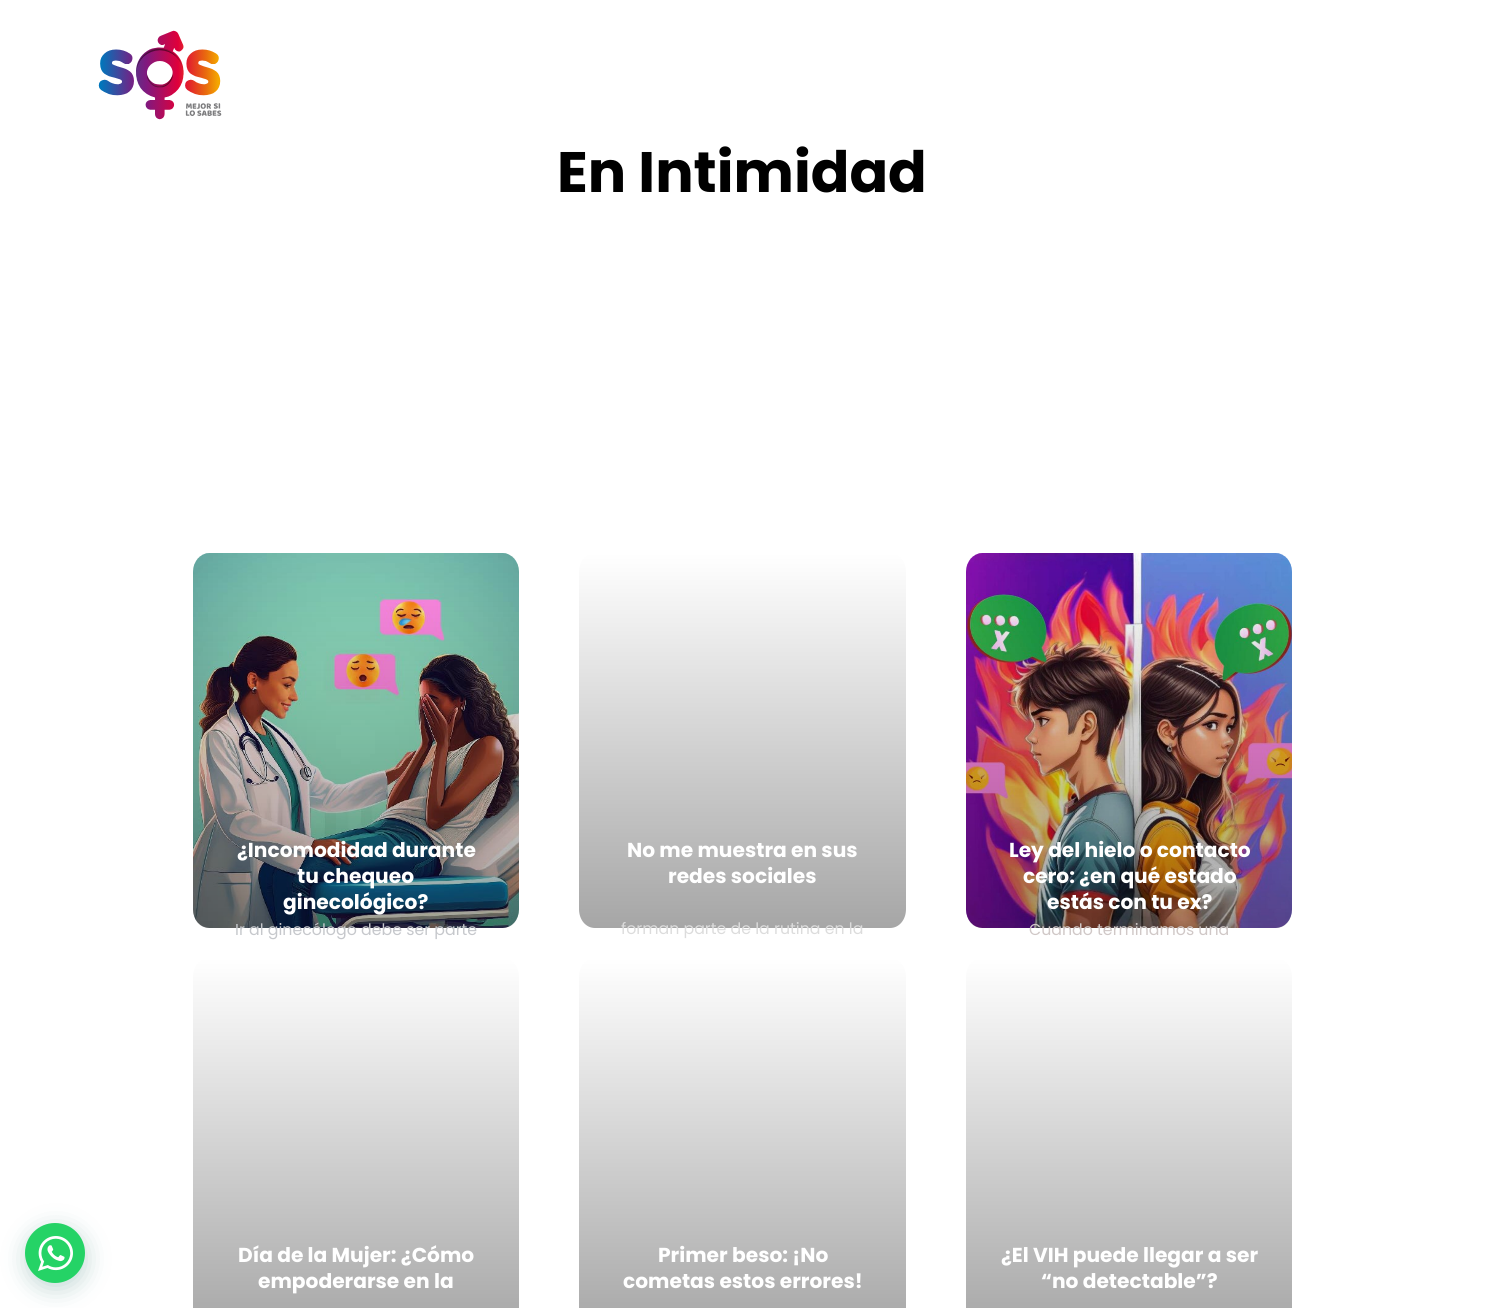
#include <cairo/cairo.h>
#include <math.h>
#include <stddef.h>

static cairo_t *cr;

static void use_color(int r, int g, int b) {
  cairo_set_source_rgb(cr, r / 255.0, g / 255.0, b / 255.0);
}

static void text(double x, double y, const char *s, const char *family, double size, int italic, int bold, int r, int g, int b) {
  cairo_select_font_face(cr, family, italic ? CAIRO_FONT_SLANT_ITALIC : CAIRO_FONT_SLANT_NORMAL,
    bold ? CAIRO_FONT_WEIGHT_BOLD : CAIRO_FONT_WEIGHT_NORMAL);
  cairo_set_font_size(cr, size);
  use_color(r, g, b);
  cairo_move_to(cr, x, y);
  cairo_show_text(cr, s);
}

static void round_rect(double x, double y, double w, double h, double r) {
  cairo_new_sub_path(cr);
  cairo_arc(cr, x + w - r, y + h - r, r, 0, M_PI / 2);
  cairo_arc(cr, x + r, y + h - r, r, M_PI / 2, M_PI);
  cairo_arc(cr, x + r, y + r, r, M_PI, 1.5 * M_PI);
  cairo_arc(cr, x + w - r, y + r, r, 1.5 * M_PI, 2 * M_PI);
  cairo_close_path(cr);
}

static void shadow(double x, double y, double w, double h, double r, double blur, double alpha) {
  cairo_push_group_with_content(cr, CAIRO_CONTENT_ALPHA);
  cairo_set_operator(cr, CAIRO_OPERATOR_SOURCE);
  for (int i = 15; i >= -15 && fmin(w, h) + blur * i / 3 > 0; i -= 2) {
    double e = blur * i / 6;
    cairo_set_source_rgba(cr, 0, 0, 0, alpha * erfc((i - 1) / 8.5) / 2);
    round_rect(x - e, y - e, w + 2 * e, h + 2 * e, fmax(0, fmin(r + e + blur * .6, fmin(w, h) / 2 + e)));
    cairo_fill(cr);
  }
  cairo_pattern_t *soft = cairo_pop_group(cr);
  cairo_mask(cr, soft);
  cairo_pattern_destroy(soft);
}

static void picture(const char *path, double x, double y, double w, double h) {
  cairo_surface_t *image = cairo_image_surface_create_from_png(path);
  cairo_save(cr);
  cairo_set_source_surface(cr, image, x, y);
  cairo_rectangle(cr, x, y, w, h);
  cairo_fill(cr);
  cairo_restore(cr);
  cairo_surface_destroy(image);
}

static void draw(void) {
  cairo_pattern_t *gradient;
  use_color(255, 255, 255);
  cairo_paint(cr);
  use_color(7, 94, 84);
  shadow(26, 1229, 60, 60, 30, 12, 0.24);
  use_color(37, 211, 102);
  cairo_arc(cr, 55, 1253, 30, 0, 2 * M_PI);
  cairo_fill(cr);
  picture("img_01.png", 38, 1236, 35, 35);
  picture("img_02.png", 98, 30, 124, 90);
  picture("img_03.png", 193, 553, 326, 375);
  gradient = cairo_pattern_create_linear(356, 553, 356, 928);
  cairo_pattern_add_color_stop_rgba(gradient, 0, 0, 0, 0, 0);
  cairo_pattern_add_color_stop_rgba(gradient, 1, 0, 0, 0, 0.35);
  cairo_set_source(cr, gradient);
  cairo_pattern_destroy(gradient);
  cairo_new_path(cr);
  cairo_move_to(cr, 209, 553);
  cairo_curve_to(cr, 200, 553, 193, 561, 193, 572);
  cairo_line_to(cr, 193, 909);
  cairo_curve_to(cr, 193, 920, 200, 928, 209, 928);
  cairo_line_to(cr, 503, 928);
  cairo_curve_to(cr, 512, 928, 519, 920, 519, 909);
  cairo_line_to(cr, 519, 572);
  cairo_curve_to(cr, 519, 561, 512, 553, 503, 553);
  cairo_close_path(cr);
  cairo_fill(cr);
  gradient = cairo_pattern_create_linear(743, 553, 743, 928);
  cairo_pattern_add_color_stop_rgba(gradient, 0, 1, 1, 1, 1);
  cairo_pattern_add_color_stop_rgba(gradient, 1, 0.651, 0.651, 0.651, 1);
  cairo_set_source(cr, gradient);
  cairo_pattern_destroy(gradient);
  cairo_new_path(cr);
  cairo_move_to(cr, 595, 553);
  cairo_curve_to(cr, 586, 553, 579, 561, 579, 572);
  cairo_line_to(cr, 579, 909);
  cairo_curve_to(cr, 579, 920, 586, 928, 595, 928);
  cairo_line_to(cr, 890, 928);
  cairo_curve_to(cr, 899, 928, 906, 920, 906, 909);
  cairo_line_to(cr, 906, 572);
  cairo_curve_to(cr, 906, 561, 899, 553, 890, 553);
  cairo_close_path(cr);
  cairo_fill(cr);
  picture("img_04.png", 966, 553, 326, 375);
  gradient = cairo_pattern_create_linear(1129, 553, 1129, 928);
  cairo_pattern_add_color_stop_rgba(gradient, 0, 0, 0, 0, 0);
  cairo_pattern_add_color_stop_rgba(gradient, 1, 0, 0, 0, 0.35);
  cairo_set_source(cr, gradient);
  cairo_pattern_destroy(gradient);
  cairo_new_path(cr);
  cairo_move_to(cr, 982, 553);
  cairo_curve_to(cr, 973, 553, 966, 561, 966, 572);
  cairo_line_to(cr, 966, 909);
  cairo_curve_to(cr, 966, 920, 973, 928, 982, 928);
  cairo_line_to(cr, 1276, 928);
  cairo_curve_to(cr, 1285, 928, 1292, 920, 1292, 909);
  cairo_line_to(cr, 1292, 572);
  cairo_curve_to(cr, 1292, 561, 1285, 553, 1276, 553);
  cairo_close_path(cr);
  cairo_fill(cr);
  gradient = cairo_pattern_create_linear(356, 958, 356, 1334);
  cairo_pattern_add_color_stop_rgba(gradient, 0, 1, 1, 1, 1);
  cairo_pattern_add_color_stop_rgba(gradient, 1, 0.651, 0.651, 0.651, 1);
  cairo_set_source(cr, gradient);
  cairo_pattern_destroy(gradient);
  cairo_new_path(cr);
  cairo_move_to(cr, 209, 958);
  cairo_curve_to(cr, 200, 958, 193, 966, 193, 977);
  cairo_line_to(cr, 193, 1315);
  cairo_curve_to(cr, 193, 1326, 200, 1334, 209, 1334);
  cairo_line_to(cr, 503, 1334);
  cairo_curve_to(cr, 512, 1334, 519, 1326, 519, 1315);
  cairo_line_to(cr, 519, 977);
  cairo_curve_to(cr, 519, 966, 512, 958, 503, 958);
  cairo_close_path(cr);
  cairo_fill(cr);
  gradient = cairo_pattern_create_linear(743, 958, 743, 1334);
  cairo_pattern_add_color_stop_rgba(gradient, 0, 1, 1, 1, 1);
  cairo_pattern_add_color_stop_rgba(gradient, 1, 0.651, 0.651, 0.651, 1);
  cairo_set_source(cr, gradient);
  cairo_pattern_destroy(gradient);
  cairo_new_path(cr);
  cairo_move_to(cr, 595, 958);
  cairo_curve_to(cr, 586, 958, 579, 966, 579, 977);
  cairo_line_to(cr, 579, 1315);
  cairo_curve_to(cr, 579, 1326, 586, 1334, 595, 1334);
  cairo_line_to(cr, 890, 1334);
  cairo_curve_to(cr, 899, 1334, 906, 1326, 906, 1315);
  cairo_line_to(cr, 906, 977);
  cairo_curve_to(cr, 906, 966, 899, 958, 890, 958);
  cairo_close_path(cr);
  cairo_fill(cr);
  gradient = cairo_pattern_create_linear(1129, 958, 1129, 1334);
  cairo_pattern_add_color_stop_rgba(gradient, 0, 1, 1, 1, 1);
  cairo_pattern_add_color_stop_rgba(gradient, 1, 0.651, 0.651, 0.651, 1);
  cairo_set_source(cr, gradient);
  cairo_pattern_destroy(gradient);
  cairo_new_path(cr);
  cairo_move_to(cr, 982, 958);
  cairo_curve_to(cr, 973, 958, 966, 966, 966, 977);
  cairo_line_to(cr, 966, 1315);
  cairo_curve_to(cr, 966, 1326, 973, 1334, 982, 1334);
  cairo_line_to(cr, 1276, 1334);
  cairo_curve_to(cr, 1285, 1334, 1292, 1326, 1292, 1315);
  cairo_line_to(cr, 1292, 977);
  cairo_curve_to(cr, 1292, 966, 1285, 958, 1276, 958);
  cairo_close_path(cr);
  cairo_fill(cr);
  text(557, 192, "En Intimidad", "Poppins", 57, 0, 1, 0, 0, 0);
  text(237, 857, "¿Incomodidad durante", "Poppins", 20.2, 0, 1, 255, 255, 255);
  text(297, 883, "tu chequeo", "Poppins", 20.2, 0, 1, 255, 255, 255);
  text(283, 909, "ginecológico?", "Poppins", 20.2, 0, 1, 255, 255, 255);
  text(235, 935, "Ir al ginecólogo debe ser parte", "Poppins", 15.8, 0, 0, 198, 200, 204);
  text(627, 857, "No me muestra en sus", "Poppins", 20.2, 0, 1, 255, 255, 255);
  text(668, 883, "redes sociales", "Poppins", 20.2, 0, 1, 255, 255, 255);
  text(621, 934, "forman parte de la rutina en la", "Poppins", 15.8, 0, 0, 220, 220, 220);
  text(1009, 857, "Ley del hielo o contacto", "Poppins", 20.2, 0, 1, 255, 255, 255);
  text(1023, 883, "cero: ¿en qué estado", "Poppins", 20.2, 0, 1, 255, 255, 255);
  text(1047, 909, "estás con tu ex?", "Poppins", 20.2, 0, 1, 255, 255, 255);
  text(1029, 935, "Cuando terminamos una", "Poppins", 15.8, 0, 0, 208, 200, 199);
  text(238, 1262, "Día de la Mujer: ¿Cómo", "Poppins", 20.2, 0, 1, 255, 255, 255);
  text(258, 1288, "empoderarse en la", "Poppins", 20.2, 0, 1, 255, 255, 255);
  text(658, 1262, "Primer beso: ¡No", "Poppins", 20.2, 0, 1, 255, 255, 255);
  text(623, 1288, "cometas estos errores!", "Poppins", 20.2, 0, 1, 255, 255, 255);
  text(1001, 1262, "¿El VIH puede llegar a ser", "Poppins", 20.2, 0, 1, 255, 255, 255);
  text(1041, 1288, "“no detectable”?", "Poppins", 20.2, 0, 1, 255, 255, 255);
}

int main(void) {
  cairo_surface_t *surface = cairo_image_surface_create(CAIRO_FORMAT_RGB24, 1485, 1308);
  cr = cairo_create(surface);
  cairo_font_options_t *options = cairo_font_options_create();
  cairo_font_options_set_hint_metrics(options, CAIRO_HINT_METRICS_OFF);
  cairo_font_options_set_hint_style(options, CAIRO_HINT_STYLE_NONE);
  cairo_set_font_options(cr, options);
  cairo_set_miter_limit(cr, 4);
  draw();
  cairo_surface_write_to_png(surface, "out.png");
  cairo_font_options_destroy(options);
  cairo_destroy(cr);
  cairo_surface_destroy(surface);
  return 0;
}
